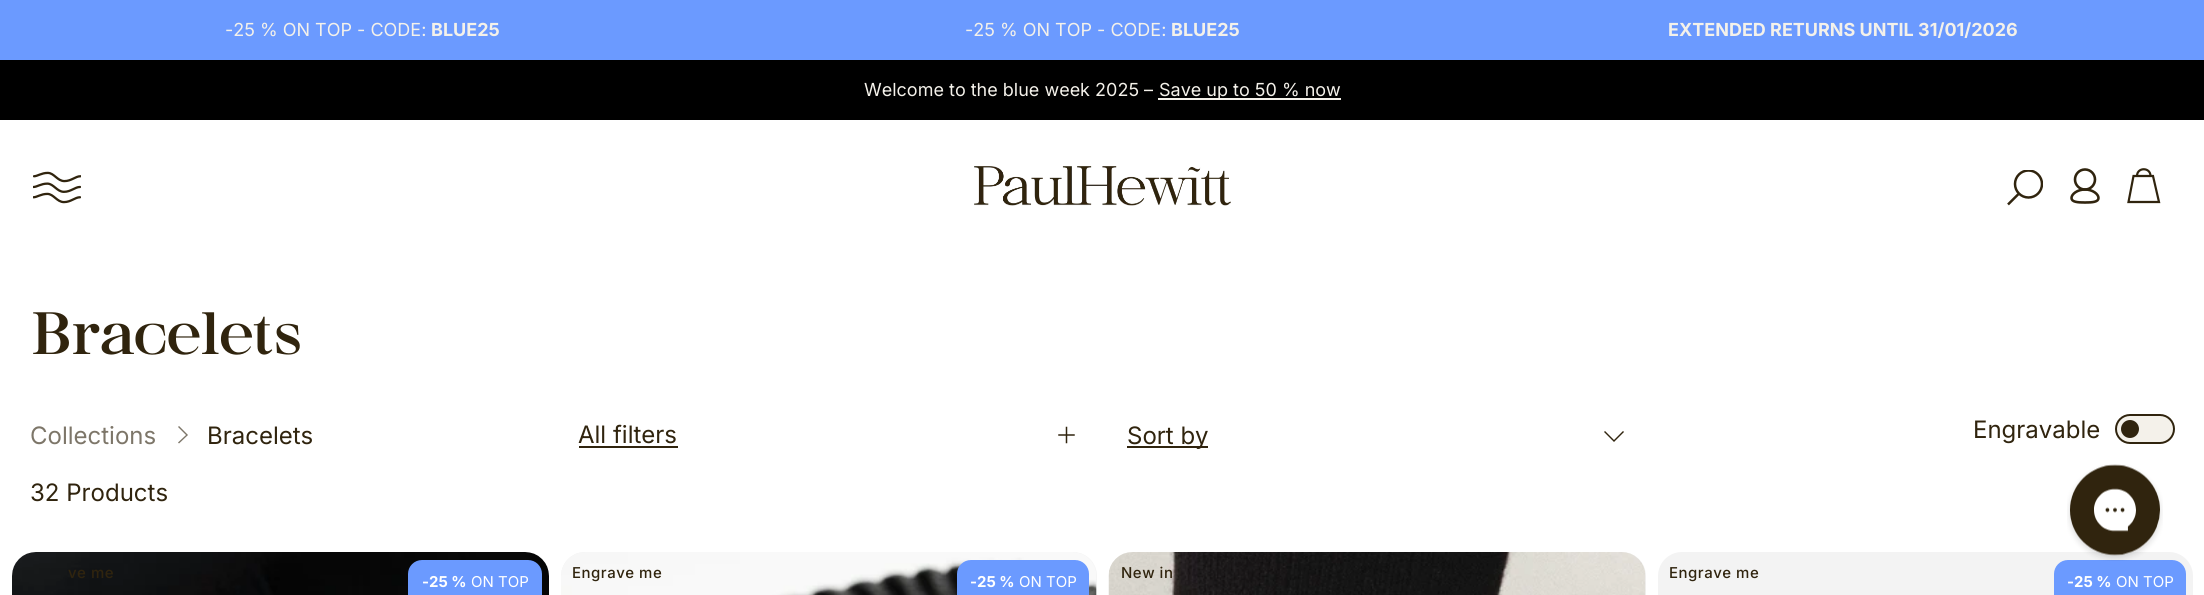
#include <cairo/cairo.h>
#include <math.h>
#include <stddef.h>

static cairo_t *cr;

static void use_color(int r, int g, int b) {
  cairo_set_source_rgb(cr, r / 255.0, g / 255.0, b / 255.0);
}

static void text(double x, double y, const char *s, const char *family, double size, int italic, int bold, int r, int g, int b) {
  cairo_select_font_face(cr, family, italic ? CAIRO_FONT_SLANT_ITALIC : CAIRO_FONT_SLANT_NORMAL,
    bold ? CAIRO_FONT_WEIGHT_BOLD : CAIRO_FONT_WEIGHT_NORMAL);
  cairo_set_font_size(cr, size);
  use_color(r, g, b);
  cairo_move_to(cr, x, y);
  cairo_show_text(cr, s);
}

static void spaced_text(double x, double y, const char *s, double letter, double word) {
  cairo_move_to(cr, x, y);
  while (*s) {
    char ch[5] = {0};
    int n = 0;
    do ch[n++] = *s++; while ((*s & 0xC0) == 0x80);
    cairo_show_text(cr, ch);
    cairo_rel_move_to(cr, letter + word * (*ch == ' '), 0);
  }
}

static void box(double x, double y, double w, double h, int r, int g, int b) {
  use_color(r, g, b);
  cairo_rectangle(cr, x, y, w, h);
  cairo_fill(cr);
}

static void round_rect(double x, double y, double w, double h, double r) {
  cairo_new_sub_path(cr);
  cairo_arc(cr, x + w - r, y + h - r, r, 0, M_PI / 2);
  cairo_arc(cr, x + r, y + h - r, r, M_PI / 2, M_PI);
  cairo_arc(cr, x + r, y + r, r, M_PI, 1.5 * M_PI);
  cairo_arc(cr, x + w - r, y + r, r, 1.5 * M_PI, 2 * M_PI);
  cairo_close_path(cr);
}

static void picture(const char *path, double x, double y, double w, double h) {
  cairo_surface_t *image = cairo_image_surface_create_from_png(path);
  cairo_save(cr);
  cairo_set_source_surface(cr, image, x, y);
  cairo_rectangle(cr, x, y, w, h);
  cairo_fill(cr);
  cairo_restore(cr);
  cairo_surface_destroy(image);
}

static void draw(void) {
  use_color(255, 255, 255);
  cairo_paint(cr);
  box(0, 0, 2204, 60, 107, 154, 255);
  box(0, 60, 2204, 60, 0, 0, 0);
  box(1158, 98, 183, 2, 244, 241, 234);
  picture("img_01.png", 33, 171, 48, 33);
  picture("img_02.png", 974, 166, 257, 40);
  cairo_save(cr);
  cairo_rectangle(cr, 2007, 170, 36, 36);
  cairo_clip(cr);
  cairo_arc(cr, 2028.5, 184, 13.5, 0, 2 * M_PI);
  use_color(48, 36, 14);
  cairo_set_line_width(cr, 2.5);
  cairo_stroke(cr);
  cairo_restore(cr);
  cairo_new_path(cr);
  cairo_move_to(cr, 2018.5, 194);
  cairo_line_to(cr, 2008, 204.5);
  use_color(48, 36, 14);
  cairo_set_line_width(cr, 2.5);
  cairo_stroke(cr);
  cairo_arc(cr, 2085, 179.5, 10, 0, 2 * M_PI);
  cairo_set_line_width(cr, 2.6);
  cairo_stroke(cr);
  cairo_new_path(cr);
  cairo_move_to(cr, 2071.5, 198);
  cairo_curve_to(cr, 2071.5, 194, 2077.5, 189.5, 2085, 189.5);
  cairo_curve_to(cr, 2092.5, 189.5, 2098.5, 194, 2098.5, 198);
  cairo_curve_to(cr, 2098.5, 202, 2092.5, 202.5, 2085, 202.5);
  cairo_curve_to(cr, 2077.5, 202.5, 2071.5, 202, 2071.5, 198);
  cairo_close_path(cr);
  cairo_stroke(cr);
  cairo_new_path(cr);
  cairo_move_to(cr, 2133.5, 176);
  cairo_line_to(cr, 2153, 176);
  cairo_line_to(cr, 2159, 202);
  cairo_line_to(cr, 2128.5, 202);
  cairo_close_path(cr);
  cairo_move_to(cr, 2137, 176);
  cairo_curve_to(cr, 2137, 167, 2150.5, 167, 2150.5, 176);
  cairo_set_line_width(cr, 2.2);
  cairo_stroke(cr);
  use_color(125, 118, 105);
  cairo_new_path(cr);
  cairo_move_to(cr, 178, 442.5);
  cairo_line_to(cr, 179, 443.5);
  cairo_line_to(cr, 188, 435);
  cairo_line_to(cr, 179, 426);
  cairo_line_to(cr, 178, 427);
  cairo_line_to(cr, 186, 435);
  cairo_close_path(cr);
  cairo_fill(cr);
  box(579, 446, 99, 2, 48, 36, 14);
  picture("img_03.png", 1058, 426, 17, 18);
  box(1127, 446, 81, 2, 48, 36, 14);
  cairo_new_path(cr);
  cairo_move_to(cr, 1605, 431);
  cairo_line_to(cr, 1604, 432);
  cairo_line_to(cr, 1614, 442);
  cairo_line_to(cr, 1624, 432);
  cairo_line_to(cr, 1623, 431);
  cairo_line_to(cr, 1614, 440);
  cairo_close_path(cr);
  cairo_fill(cr);
  use_color(244, 241, 234);
  round_rect(2116, 415, 58, 28, 14);
  cairo_fill_preserve(cr);
  use_color(48, 36, 14);
  cairo_set_line_width(cr, 2);
  cairo_stroke(cr);
  cairo_arc(cr, 2130, 429, 9, 0, 2 * M_PI);
  cairo_fill(cr);
  picture("img_04.png", 12, 552, 537, 43);
  use_color(107, 154, 255);
  round_rect(408, 560, 134, 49, 14);
  cairo_fill(cr);
  use_color(243, 243, 243);
  round_rect(561, 552, 536, 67, 24);
  cairo_fill(cr);
  picture("img_05.png", 561, 552, 536, 43);
  use_color(107, 154, 255);
  round_rect(957, 560, 132, 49, 14);
  cairo_fill(cr);
  use_color(243, 243, 243);
  round_rect(1109, 552, 537, 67, 24);
  cairo_fill(cr);
  picture("img_06.png", 1108, 552, 538, 43);
  round_rect(1658, 552, 535, 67, 24);
  cairo_fill(cr);
  use_color(107, 154, 255);
  round_rect(2054, 560, 132, 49, 14);
  cairo_fill(cr);
  picture("img_07.png", 2067, 464, 96, 97);
  text(225, 36, "-25 % ON TOP - CODE:", "Inter", 18, 0, 0, 244, 241, 234);
  text(431, 36, "BLUE25", "Inter", 18, 0, 1, 244, 241, 234);
  text(965, 36, "-25 % ON TOP - CODE:", "Inter", 18, 0, 0, 244, 241, 234);
  text(1171, 36, "BLUE25", "Inter", 18, 0, 1, 244, 241, 234);
  text(1668, 36, "EXTENDED RETURNS UNTIL 31/01/2026", "Inter", 18, 0, 1, 244, 241, 234);
  text(864, 96, "Welcome to the blue week 2025 –", "Inter", 18, 0, 0, 244, 241, 234);
  text(1159, 96, "Save up to 50 % now", "Inter", 18, 0, 0, 244, 241, 234);
  cairo_select_font_face(cr, "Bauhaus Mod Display", CAIRO_FONT_SLANT_NORMAL, CAIRO_FONT_WEIGHT_NORMAL);
  cairo_set_font_size(cr, 57);
  use_color(48, 36, 14);
  spaced_text(30, 354, "Bracelets", -1.5, 0);
  text(30, 444, "Collections", "Inter", 24, 0, 0, 125, 118, 105);
  text(207, 444, "Bracelets", "Inter", 24, 0, 0, 48, 36, 14);
  text(578, 443, "All filters", "Inter", 24, 0, 0, 48, 36, 14);
  text(1127, 444, "Sort by", "Inter", 24, 0, 0, 48, 36, 14);
  text(1973, 438, "Engravable", "Inter", 24, 0, 0, 48, 36, 14);
  text(30, 501, "32 Products", "Inter", 24, 0, 0, 48, 36, 14);
  cairo_select_font_face(cr, "Inter Medium", CAIRO_FONT_SLANT_NORMAL, CAIRO_FONT_WEIGHT_NORMAL);
  cairo_set_font_size(cr, 15);
  spaced_text(68, 578, "ve me", 0.5, 0);
  text(422, 587, "-25 %", "Inter", 15, 0, 1, 255, 255, 255);
  text(471, 587, "ON TOP", "Inter", 15, 0, 0, 255, 255, 255);
  cairo_select_font_face(cr, "Inter Medium", CAIRO_FONT_SLANT_NORMAL, CAIRO_FONT_WEIGHT_NORMAL);
  use_color(48, 36, 14);
  spaced_text(572, 578, "Engrave me", 0.5, 0);
  text(970, 587, "-25 %", "Inter", 15, 0, 1, 255, 255, 255);
  text(1019, 587, "ON TOP", "Inter", 15, 0, 0, 255, 255, 255);
  cairo_select_font_face(cr, "Inter Medium", CAIRO_FONT_SLANT_NORMAL, CAIRO_FONT_WEIGHT_NORMAL);
  use_color(48, 36, 14);
  spaced_text(1121, 578, "New in", 0.5, 0);
  spaced_text(1669, 578, "Engrave me", 0.5, 0);
  text(2067, 587, "-25 %", "Inter", 15, 0, 1, 255, 255, 255);
  text(2116, 587, "ON TOP", "Inter", 15, 0, 0, 255, 255, 255);
}

int main(void) {
  cairo_surface_t *surface = cairo_image_surface_create(CAIRO_FORMAT_RGB24, 2204, 595);
  cr = cairo_create(surface);
  cairo_font_options_t *options = cairo_font_options_create();
  cairo_font_options_set_hint_metrics(options, CAIRO_HINT_METRICS_OFF);
  cairo_font_options_set_hint_style(options, CAIRO_HINT_STYLE_NONE);
  cairo_set_font_options(cr, options);
  cairo_set_miter_limit(cr, 4);
  draw();
  cairo_surface_write_to_png(surface, "out.png");
  cairo_font_options_destroy(options);
  cairo_destroy(cr);
  cairo_surface_destroy(surface);
  return 0;
}
